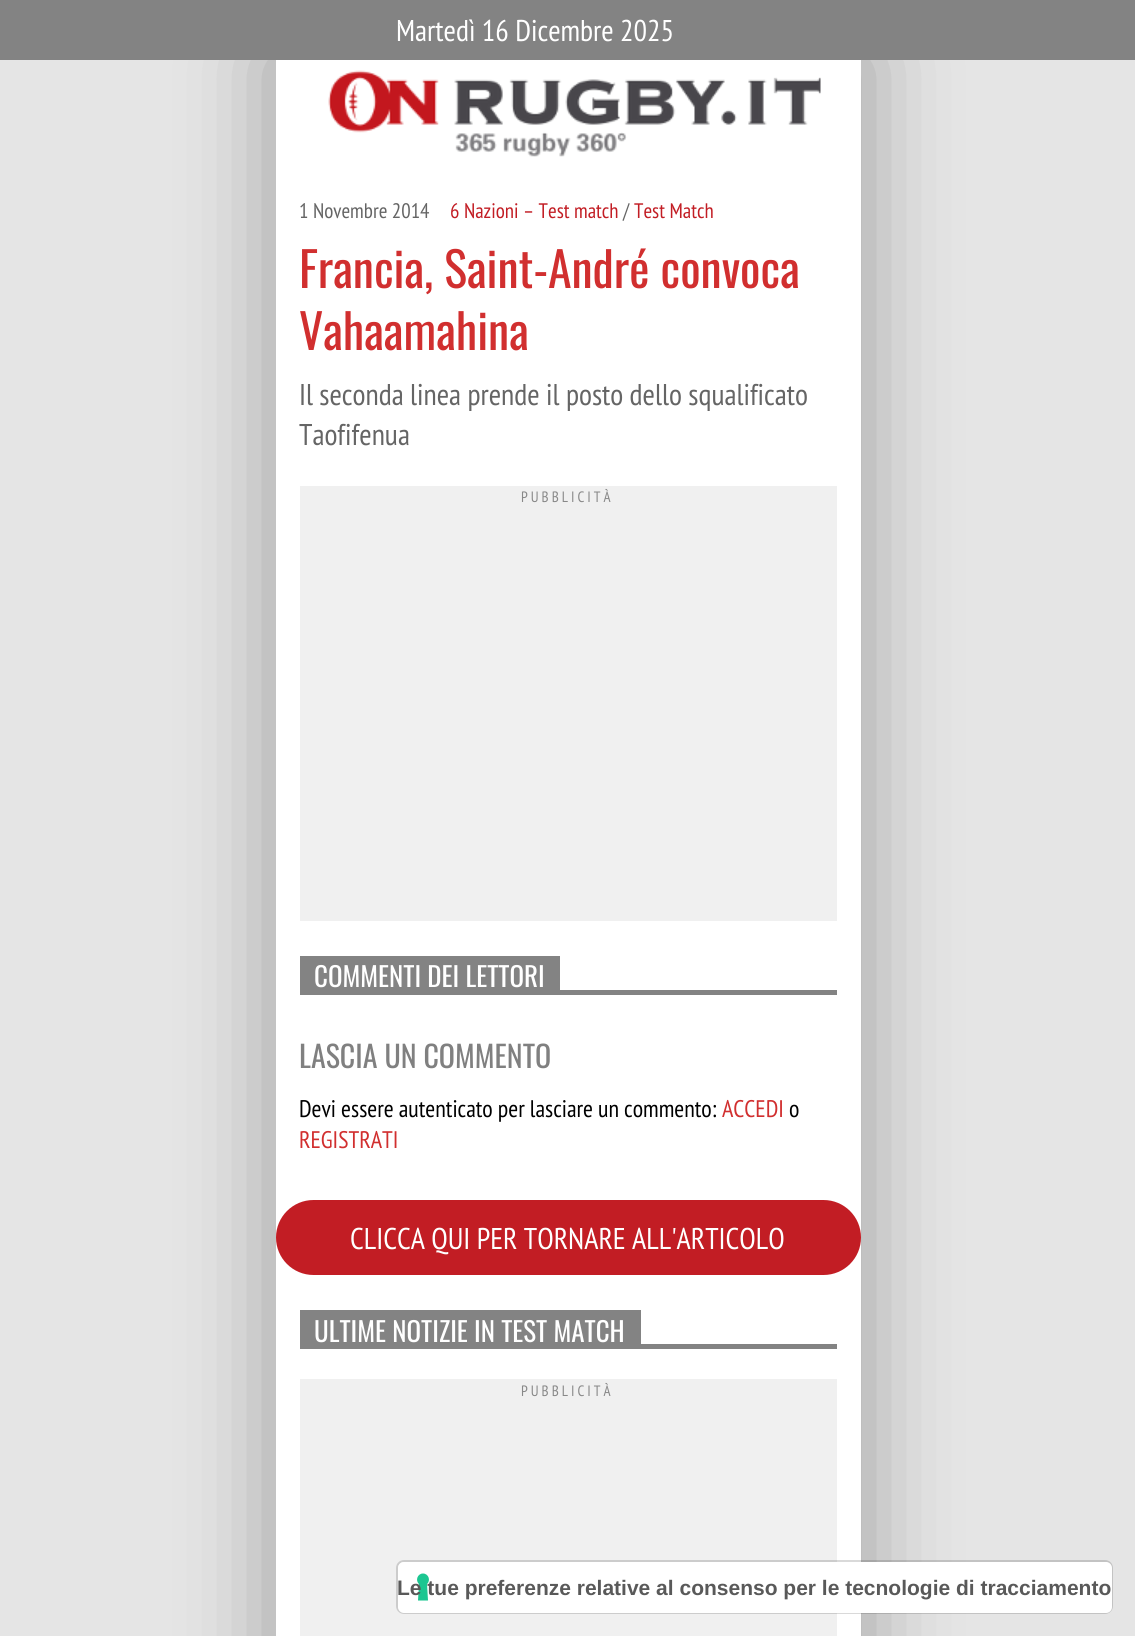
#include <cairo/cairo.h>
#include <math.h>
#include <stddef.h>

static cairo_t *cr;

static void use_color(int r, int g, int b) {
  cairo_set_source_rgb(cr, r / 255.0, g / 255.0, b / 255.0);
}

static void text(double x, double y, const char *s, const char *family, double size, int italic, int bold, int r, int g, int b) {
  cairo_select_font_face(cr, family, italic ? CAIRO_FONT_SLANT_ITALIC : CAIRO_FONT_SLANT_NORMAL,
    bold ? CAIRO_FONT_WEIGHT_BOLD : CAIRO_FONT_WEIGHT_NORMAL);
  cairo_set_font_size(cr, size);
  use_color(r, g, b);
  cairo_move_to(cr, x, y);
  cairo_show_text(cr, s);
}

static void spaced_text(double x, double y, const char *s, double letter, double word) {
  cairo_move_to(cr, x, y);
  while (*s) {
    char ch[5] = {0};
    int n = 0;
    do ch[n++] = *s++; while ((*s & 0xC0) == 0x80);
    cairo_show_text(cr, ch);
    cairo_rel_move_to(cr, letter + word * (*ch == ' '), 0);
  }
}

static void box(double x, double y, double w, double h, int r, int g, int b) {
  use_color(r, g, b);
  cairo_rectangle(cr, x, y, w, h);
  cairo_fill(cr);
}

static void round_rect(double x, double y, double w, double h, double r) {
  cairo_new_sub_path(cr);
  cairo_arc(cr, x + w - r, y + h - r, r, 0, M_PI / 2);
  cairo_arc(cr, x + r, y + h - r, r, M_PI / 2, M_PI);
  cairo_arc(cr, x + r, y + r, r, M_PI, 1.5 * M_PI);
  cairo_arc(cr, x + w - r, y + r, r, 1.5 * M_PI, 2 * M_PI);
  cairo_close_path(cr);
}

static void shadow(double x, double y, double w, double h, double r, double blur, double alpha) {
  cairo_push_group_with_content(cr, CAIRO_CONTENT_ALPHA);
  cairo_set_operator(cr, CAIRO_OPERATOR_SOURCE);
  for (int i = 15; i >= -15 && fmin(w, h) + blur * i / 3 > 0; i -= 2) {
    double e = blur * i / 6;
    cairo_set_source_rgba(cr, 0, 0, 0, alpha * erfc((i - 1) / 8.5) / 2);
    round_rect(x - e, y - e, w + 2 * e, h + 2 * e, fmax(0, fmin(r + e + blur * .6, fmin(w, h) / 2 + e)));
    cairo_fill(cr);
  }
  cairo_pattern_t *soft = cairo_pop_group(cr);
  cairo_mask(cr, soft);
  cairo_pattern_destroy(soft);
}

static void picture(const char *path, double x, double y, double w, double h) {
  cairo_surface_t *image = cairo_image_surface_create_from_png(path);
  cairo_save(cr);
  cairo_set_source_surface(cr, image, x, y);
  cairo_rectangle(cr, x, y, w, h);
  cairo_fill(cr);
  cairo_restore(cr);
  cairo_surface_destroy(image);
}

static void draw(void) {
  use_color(229, 229, 229);
  cairo_paint(cr);
  use_color(0, 0, 0);
  shadow(269, 53, 600, 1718, 0, 45, 0.3);
  box(0, 0, 1135, 60, 131, 131, 131);
  box(276, 60, 585, 1576, 255, 255, 255);
  picture("img_01.png", 328, 70, 493, 87);
  box(300, 486, 537, 435, 240, 240, 240);
  box(560, 990, 277, 5, 131, 131, 131);
  box(300, 956, 260, 39, 131, 131, 131);
  use_color(194, 29, 36);
  round_rect(276, 1200, 585, 75, 37.5);
  cairo_fill(cr);
  box(641, 1344, 196, 5, 131, 131, 131);
  box(300, 1310, 341, 39, 131, 131, 131);
  box(300, 1379, 537, 257, 240, 240, 240);
  round_rect(397, 1561, 715, 52, 7);
  cairo_set_source_rgba(cr, 0, 0, 0, 0.15);
  cairo_stroke(cr);
  use_color(255, 255, 255);
  round_rect(398, 1562, 714, 51, 6);
  cairo_fill(cr);
  use_color(28, 198, 145);
  cairo_set_fill_rule(cr, CAIRO_FILL_RULE_EVEN_ODD);
  cairo_new_path(cr);
  cairo_move_to(cr, 423, 1573.5);
  cairo_curve_to(cr, 428.5, 1573.5, 431, 1580.5, 427, 1584);
  cairo_line_to(cr, 428, 1600.5);
  cairo_line_to(cr, 418, 1600.5);
  cairo_line_to(cr, 419, 1584);
  cairo_curve_to(cr, 415, 1580.5, 417.5, 1573.5, 423, 1573.5);
  cairo_close_path(cr);
  cairo_fill(cr);
  text(396, 41, "Martedì 16 Dicembre 2025", "PT Sans Narrow", 30, 0, 0, 255, 255, 255);
  text(299, 218, "1 Novembre 2014", "PT Sans Narrow", 21, 0, 0, 101, 101, 101);
  text(450, 218, "6 Nazioni – Test match", "PT Sans Narrow", 21, 0, 0, 194, 29, 36);
  text(623, 218, "/", "PT Sans Narrow", 21, 0, 0, 101, 101, 101);
  text(634, 218, "Test Match", "PT Sans Narrow", 21, 0, 0, 194, 29, 36);
  text(299, 288, "Francia, Saint-André convoca", "Oswald", 48, 0, 0, 209, 47, 47);
  text(299, 350, "Vahaamahina", "Oswald", 48, 0, 0, 209, 47, 47);
  text(299, 405, "Il seconda linea prende il posto dello squalificato", "PT Sans Narrow", 30, 0, 0, 101, 101, 101);
  text(299, 445, "Taofifenua", "PT Sans Narrow", 30, 0, 0, 101, 101, 101);
  cairo_set_font_size(cr, 15);
  use_color(136, 136, 136);
  spaced_text(521, 502, "PUBBLICITÀ", 3, 0);
  text(314, 987, "COMMENTI DEI LETTORI", "Oswald", 27, 0, 0, 255, 255, 255);
  text(299, 1068, "LASCIA UN COMMENTO", "Oswald", 30, 0, 0, 128, 128, 128);
  text(299, 1117, "Devi essere autenticato per lasciare un commento:", "PT Sans Narrow", 24, 0, 0, 0, 0, 0);
  text(722, 1117, "ACCEDI", "PT Sans Narrow", 24, 0, 0, 209, 47, 47);
  text(789, 1117, "o", "PT Sans Narrow", 24, 0, 0, 0, 0, 0);
  text(299, 1148, "REGISTRATI", "PT Sans Narrow", 24, 0, 0, 209, 47, 47);
  text(350, 1249, "CLICCA QUI PER TORNARE ALL'ARTICOLO", "PT Sans Narrow", 30, 0, 0, 255, 255, 255);
  text(314, 1342, "ULTIME NOTIZIE IN TEST MATCH", "Oswald", 27, 0, 0, 255, 255, 255);
  cairo_select_font_face(cr, "PT Sans Narrow", CAIRO_FONT_SLANT_NORMAL, CAIRO_FONT_WEIGHT_NORMAL);
  cairo_set_font_size(cr, 15);
  use_color(136, 136, 136);
  spaced_text(521, 1396, "PUBBLICITÀ", 3, 0);
  text(397, 1595, "Le tue preferenze relative al consenso per le tecnologie di tracciamento", "Liberation Sans", 21, 0, 1, 89, 89, 89);
}

int main(void) {
  cairo_surface_t *surface = cairo_image_surface_create(CAIRO_FORMAT_RGB24, 1135, 1636);
  cr = cairo_create(surface);
  cairo_font_options_t *options = cairo_font_options_create();
  cairo_font_options_set_hint_metrics(options, CAIRO_HINT_METRICS_OFF);
  cairo_font_options_set_hint_style(options, CAIRO_HINT_STYLE_NONE);
  cairo_set_font_options(cr, options);
  cairo_set_miter_limit(cr, 4);
  draw();
  cairo_surface_write_to_png(surface, "out.png");
  cairo_font_options_destroy(options);
  cairo_destroy(cr);
  cairo_surface_destroy(surface);
  return 0;
}
